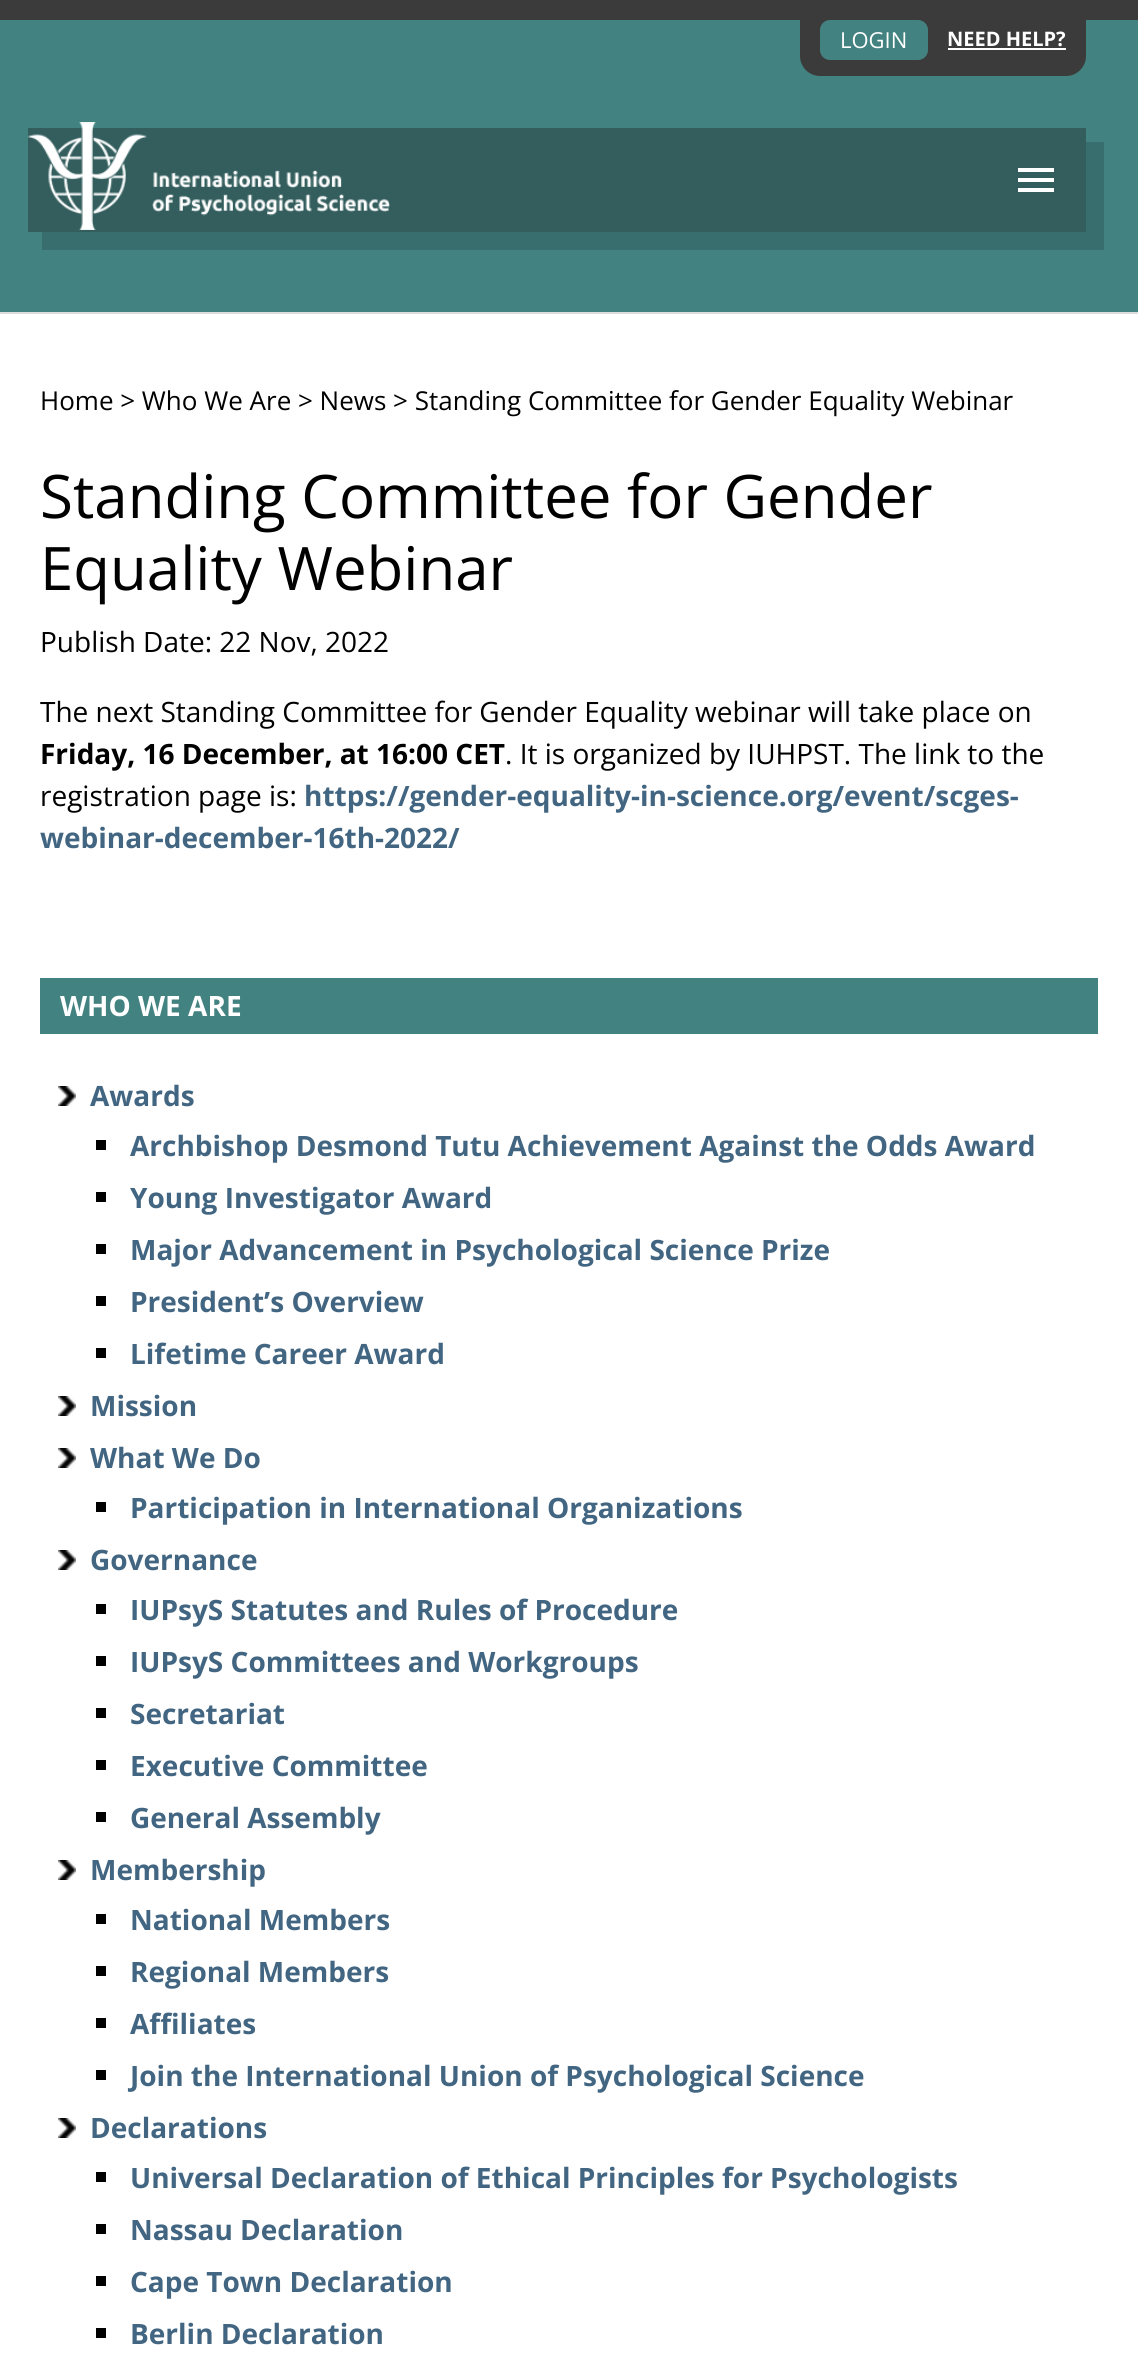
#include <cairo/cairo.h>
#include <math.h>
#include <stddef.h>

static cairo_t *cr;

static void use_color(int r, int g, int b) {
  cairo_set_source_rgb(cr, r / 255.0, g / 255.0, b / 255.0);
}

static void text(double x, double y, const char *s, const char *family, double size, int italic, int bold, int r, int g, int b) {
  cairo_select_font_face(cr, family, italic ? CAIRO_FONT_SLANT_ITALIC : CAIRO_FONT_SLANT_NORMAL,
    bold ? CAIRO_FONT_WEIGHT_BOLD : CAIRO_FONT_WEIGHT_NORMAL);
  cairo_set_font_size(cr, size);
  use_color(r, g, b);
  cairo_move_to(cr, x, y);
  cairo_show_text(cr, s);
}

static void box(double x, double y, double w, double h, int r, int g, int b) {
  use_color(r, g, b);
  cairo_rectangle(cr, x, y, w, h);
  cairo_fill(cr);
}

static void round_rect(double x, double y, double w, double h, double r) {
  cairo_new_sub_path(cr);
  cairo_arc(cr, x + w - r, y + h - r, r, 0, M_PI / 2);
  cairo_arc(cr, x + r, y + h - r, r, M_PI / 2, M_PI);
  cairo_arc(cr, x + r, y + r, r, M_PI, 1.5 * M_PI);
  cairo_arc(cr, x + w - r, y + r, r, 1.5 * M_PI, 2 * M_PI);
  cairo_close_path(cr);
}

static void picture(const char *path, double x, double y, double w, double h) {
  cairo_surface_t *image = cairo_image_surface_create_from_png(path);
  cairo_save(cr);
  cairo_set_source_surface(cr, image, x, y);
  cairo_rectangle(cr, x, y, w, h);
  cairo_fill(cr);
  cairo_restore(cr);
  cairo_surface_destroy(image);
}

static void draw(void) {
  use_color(255, 255, 255);
  cairo_paint(cr);
  box(0, 20, 1138, 292, 66, 130, 129);
  box(0, 312, 1138, 2, 221, 221, 221);
  box(0, 0, 1138, 20, 59, 59, 59);
  cairo_new_path(cr);
  cairo_move_to(cr, 800, 20);
  cairo_line_to(cr, 1086, 20);
  cairo_line_to(cr, 1086, 56);
  cairo_curve_to(cr, 1086, 67, 1077, 76, 1066, 76);
  cairo_line_to(cr, 820, 76);
  cairo_curve_to(cr, 809, 76, 800, 67, 800, 56);
  cairo_close_path(cr);
  cairo_fill(cr);
  use_color(66, 130, 129);
  round_rect(820, 20, 108, 40, 10);
  cairo_fill(cr);
  box(948, 48, 118, 2, 255, 255, 255);
  use_color(56, 111, 110);
  cairo_new_path(cr);
  cairo_move_to(cr, 42, 232);
  cairo_line_to(cr, 42, 250);
  cairo_line_to(cr, 1104, 250);
  cairo_line_to(cr, 1104, 142);
  cairo_line_to(cr, 1086, 142);
  cairo_line_to(cr, 1086, 232);
  cairo_close_path(cr);
  cairo_fill(cr);
  box(28, 128, 1058, 104, 51, 94, 93);
  picture("img_01.png", 28, 122, 362, 108);
  box(1018, 178, 36, 4, 255, 255, 255);
  box(1018, 168, 36, 4, 255, 255, 255);
  box(1018, 188, 36, 4, 255, 255, 255);
  box(40, 978, 1058, 56, 66, 130, 129);
  picture("img_02.png", 58, 1086, 18, 20);
  box(96, 1140, 10, 10, 0, 0, 0);
  box(96, 1192, 10, 10, 0, 0, 0);
  box(96, 1244, 10, 10, 0, 0, 0);
  box(96, 1296, 10, 10, 0, 0, 0);
  box(96, 1348, 10, 10, 0, 0, 0);
  picture("img_02.png", 58, 1396, 18, 20);
  picture("img_02.png", 58, 1448, 18, 20);
  box(96, 1502, 10, 10, 0, 0, 0);
  picture("img_02.png", 58, 1550, 18, 20);
  box(96, 1604, 10, 10, 0, 0, 0);
  box(96, 1656, 10, 10, 0, 0, 0);
  box(96, 1708, 10, 10, 0, 0, 0);
  box(96, 1760, 10, 10, 0, 0, 0);
  box(96, 1812, 10, 10, 0, 0, 0);
  picture("img_02.png", 58, 1860, 18, 20);
  box(96, 1914, 10, 10, 0, 0, 0);
  box(96, 1966, 10, 10, 0, 0, 0);
  box(96, 2018, 10, 10, 0, 0, 0);
  box(96, 2070, 10, 10, 0, 0, 0);
  picture("img_02.png", 58, 2118, 18, 20);
  box(96, 2172, 10, 10, 0, 0, 0);
  box(96, 2224, 10, 10, 0, 0, 0);
  box(96, 2276, 10, 10, 0, 0, 0);
  box(96, 2328, 10, 10, 0, 0, 0);
  text(840, 48, "LOGIN", "Open Sans", 22, 0, 0, 255, 255, 255);
  text(947, 46, "NEED HELP?", "Open Sans", 20, 0, 1, 255, 255, 255);
  text(40, 410, "Home > Who We Are > News > Standing Committee for Gender Equality Webinar", "Open Sans", 26, 0, 0, 0, 0, 0);
  text(40, 518, "Standing Committee for Gender", "Open Sans", 60, 0, 0, 0, 0, 0);
  text(40, 590, "Equality Webinar", "Open Sans", 60, 0, 0, 0, 0, 0);
  text(40, 652, "Publish Date: 22 Nov, 2022", "Open Sans", 28, 0, 0, 0, 0, 0);
  text(40, 722, "The next Standing Committee for Gender Equality webinar will take place on", "Open Sans", 28, 0, 0, 0, 0, 0);
  text(40, 764, "Friday, 16 December, at 16:00 CET", "Open Sans", 28, 0, 1, 0, 0, 0);
  text(505, 764, ". It is organized by IUHPST. The link to the", "Open Sans", 28, 0, 0, 0, 0, 0);
  text(40, 806, "registration page is:", "Open Sans", 28, 0, 0, 0, 0, 0);
  text(304, 806, "https://gender-equality-in-science.org/event/scges-", "Open Sans", 28, 0, 1, 66, 102, 130);
  text(40, 848, "webinar-december-16th-2022/", "Open Sans", 28, 0, 1, 66, 102, 130);
  text(60, 1016, "WHO WE ARE", "Open Sans", 28, 0, 1, 255, 255, 255);
  text(90, 1106, "Awards", "Open Sans", 28, 0, 1, 66, 102, 130);
  text(130, 1156, "Archbishop Desmond Tutu Achievement Against the Odds Award", "Open Sans", 28, 0, 1, 66, 102, 130);
  text(130, 1208, "Young Investigator Award", "Open Sans", 28, 0, 1, 66, 102, 130);
  text(130, 1260, "Major Advancement in Psychological Science Prize", "Open Sans", 28, 0, 1, 66, 102, 130);
  text(130, 1312, "President’s Overview", "Open Sans", 28, 0, 1, 66, 102, 130);
  text(130, 1364, "Lifetime Career Award", "Open Sans", 28, 0, 1, 66, 102, 130);
  text(90, 1416, "Mission", "Open Sans", 28, 0, 1, 66, 102, 130);
  text(90, 1468, "What We Do", "Open Sans", 28, 0, 1, 66, 102, 130);
  text(130, 1518, "Participation in International Organizations", "Open Sans", 28, 0, 1, 66, 102, 130);
  text(90, 1570, "Governance", "Open Sans", 28, 0, 1, 66, 102, 130);
  text(130, 1620, "IUPsyS Statutes and Rules of Procedure", "Open Sans", 28, 0, 1, 66, 102, 130);
  text(130, 1672, "IUPsyS Committees and Workgroups", "Open Sans", 28, 0, 1, 66, 102, 130);
  text(130, 1724, "Secretariat", "Open Sans", 28, 0, 1, 66, 102, 130);
  text(130, 1776, "Executive Committee", "Open Sans", 28, 0, 1, 66, 102, 130);
  text(130, 1828, "General Assembly", "Open Sans", 28, 0, 1, 66, 102, 130);
  text(90, 1880, "Membership", "Open Sans", 28, 0, 1, 66, 102, 130);
  text(130, 1930, "National Members", "Open Sans", 28, 0, 1, 66, 102, 130);
  text(130, 1982, "Regional Members", "Open Sans", 28, 0, 1, 66, 102, 130);
  text(130, 2034, "Affiliates", "Open Sans", 28, 0, 1, 66, 102, 130);
  text(130, 2086, "Join the International Union of Psychological Science", "Open Sans", 28, 0, 1, 66, 102, 130);
  text(90, 2138, "Declarations", "Open Sans", 28, 0, 1, 66, 102, 130);
  text(130, 2188, "Universal Declaration of Ethical Principles for Psychologists", "Open Sans", 28, 0, 1, 66, 102, 130);
  text(130, 2240, "Nassau Declaration", "Open Sans", 28, 0, 1, 66, 102, 130);
  text(130, 2292, "Cape Town Declaration", "Open Sans", 28, 0, 1, 66, 102, 130);
  text(130, 2344, "Berlin Declaration", "Open Sans", 28, 0, 1, 66, 102, 130);
}

int main(void) {
  cairo_surface_t *surface = cairo_image_surface_create(CAIRO_FORMAT_RGB24, 1138, 2357);
  cr = cairo_create(surface);
  cairo_font_options_t *options = cairo_font_options_create();
  cairo_font_options_set_hint_metrics(options, CAIRO_HINT_METRICS_OFF);
  cairo_font_options_set_hint_style(options, CAIRO_HINT_STYLE_NONE);
  cairo_set_font_options(cr, options);
  cairo_set_miter_limit(cr, 4);
  draw();
  cairo_surface_write_to_png(surface, "out.png");
  cairo_font_options_destroy(options);
  cairo_destroy(cr);
  cairo_surface_destroy(surface);
  return 0;
}
